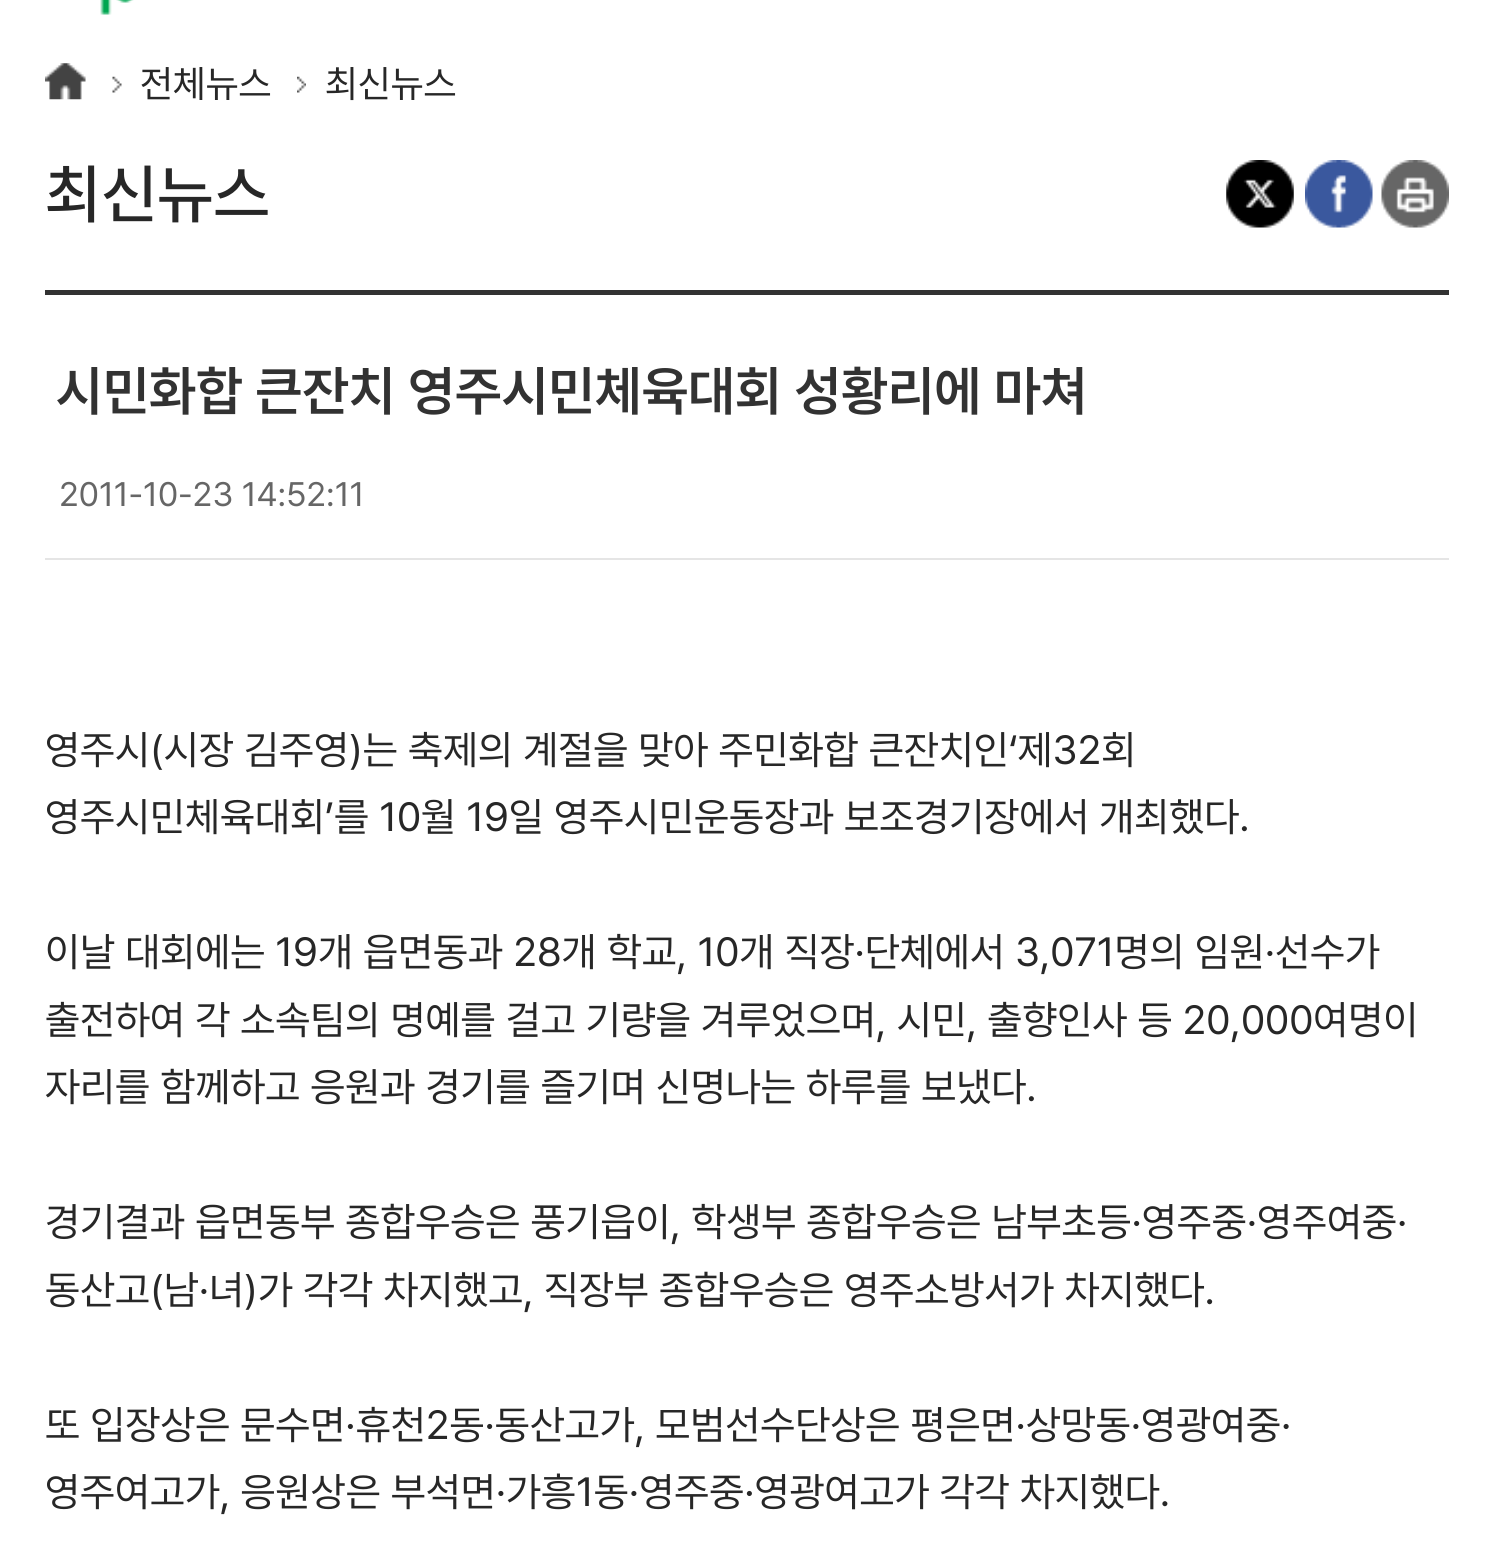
#include <cairo/cairo.h>
#include <math.h>
#include <stddef.h>

static cairo_t *cr;

static void use_color(int r, int g, int b) {
  cairo_set_source_rgb(cr, r / 255.0, g / 255.0, b / 255.0);
}

static void text(double x, double y, const char *s, const char *family, double size, int italic, int bold, int r, int g, int b) {
  cairo_select_font_face(cr, family, italic ? CAIRO_FONT_SLANT_ITALIC : CAIRO_FONT_SLANT_NORMAL,
    bold ? CAIRO_FONT_WEIGHT_BOLD : CAIRO_FONT_WEIGHT_NORMAL);
  cairo_set_font_size(cr, size);
  use_color(r, g, b);
  cairo_move_to(cr, x, y);
  cairo_show_text(cr, s);
}

static void box(double x, double y, double w, double h, int r, int g, int b) {
  use_color(r, g, b);
  cairo_rectangle(cr, x, y, w, h);
  cairo_fill(cr);
}

static void picture(const char *path, double x, double y, double w, double h) {
  cairo_surface_t *image = cairo_image_surface_create_from_png(path);
  cairo_save(cr);
  cairo_set_source_surface(cr, image, x, y);
  cairo_rectangle(cr, x, y, w, h);
  cairo_fill(cr);
  cairo_restore(cr);
  cairo_surface_destroy(image);
}

static void draw(void) {
  use_color(255, 255, 255);
  cairo_paint(cr);
  picture("img_01.png", 100, 0, 34, 15);
  picture("img_02.png", 45, 63, 41, 37);
  picture("img_03.png", 112, 76, 10, 17);
  picture("img_04.png", 297, 76, 9, 17);
  picture("img_05.png", 1226, 160, 68, 68);
  picture("img_06.png", 1305, 160, 68, 68);
  picture("img_07.png", 1381, 160, 68, 68);
  box(45, 290, 1404, 5, 50, 50, 50);
  box(45, 558, 1404, 2, 229, 229, 229);
  text(140, 97, "전체뉴스", "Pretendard", 38, 0, 0, 39, 39, 39);
  text(325, 97, "최신뉴스", "Pretendard", 38, 0, 0, 39, 39, 39);
  text(45, 217, "최신뉴스", "Pretendard Medium", 65, 0, 0, 39, 39, 39);
  text(56, 410, "시민화합 큰잔치 영주시민체육대회 성황리에 마쳐", "Pretendard SemiBold", 54, 0, 0, 50, 50, 50);
  text(59, 506, "2011-10-23 14:52:11", "Pretendard", 33.75, 0, 0, 102, 102, 102);
  text(45, 764, "영주시(시장 김주영)는 축제의 계절을 맞아 주민화합 큰잔치인‘제32회", "Pretendard", 40.5, 0, 0, 39, 39, 39);
  text(45, 831, "영주시민체육대회’를 10월 19일 영주시민운동장과 보조경기장에서 개최했다.", "Pretendard", 40.5, 0, 0, 39, 39, 39);
  text(45, 966, "이날 대회에는 19개 읍면동과 28개 학교, 10개 직장·단체에서 3,071명의 임원·선수가", "Pretendard", 40.5, 0, 0, 39, 39, 39);
  text(45, 1034, "출전하여 각 소속팀의 명예를 걸고 기량을 겨루었으며, 시민, 출향인사 등 20,000여명이", "Pretendard", 40.5, 0, 0, 39, 39, 39);
  text(45, 1101, "자리를 함께하고 응원과 경기를 즐기며 신명나는 하루를 보냈다.", "Pretendard", 40.5, 0, 0, 39, 39, 39);
  text(45, 1236, "경기결과 읍면동부 종합우승은 풍기읍이, 학생부 종합우승은 남부초등·영주중·영주여중·", "Pretendard", 40.5, 0, 0, 39, 39, 39);
  text(45, 1304, "동산고(남·녀)가 각각 차지했고, 직장부 종합우승은 영주소방서가 차지했다.", "Pretendard", 40.5, 0, 0, 39, 39, 39);
  text(45, 1439, "또 입장상은 문수면·휴천2동·동산고가, 모범선수단상은 평은면·상망동·영광여중·", "Pretendard", 40.5, 0, 0, 39, 39, 39);
  text(45, 1506, "영주여고가, 응원상은 부석면·가흥1동·영주중·영광여고가 각각 차지했다.", "Pretendard", 40.5, 0, 0, 39, 39, 39);
}

int main(void) {
  cairo_surface_t *surface = cairo_image_surface_create(CAIRO_FORMAT_RGB24, 1492, 1548);
  cr = cairo_create(surface);
  cairo_font_options_t *options = cairo_font_options_create();
  cairo_font_options_set_hint_metrics(options, CAIRO_HINT_METRICS_OFF);
  cairo_font_options_set_hint_style(options, CAIRO_HINT_STYLE_NONE);
  cairo_set_font_options(cr, options);
  cairo_set_miter_limit(cr, 4);
  draw();
  cairo_surface_write_to_png(surface, "out.png");
  cairo_font_options_destroy(options);
  cairo_destroy(cr);
  cairo_surface_destroy(surface);
  return 0;
}
